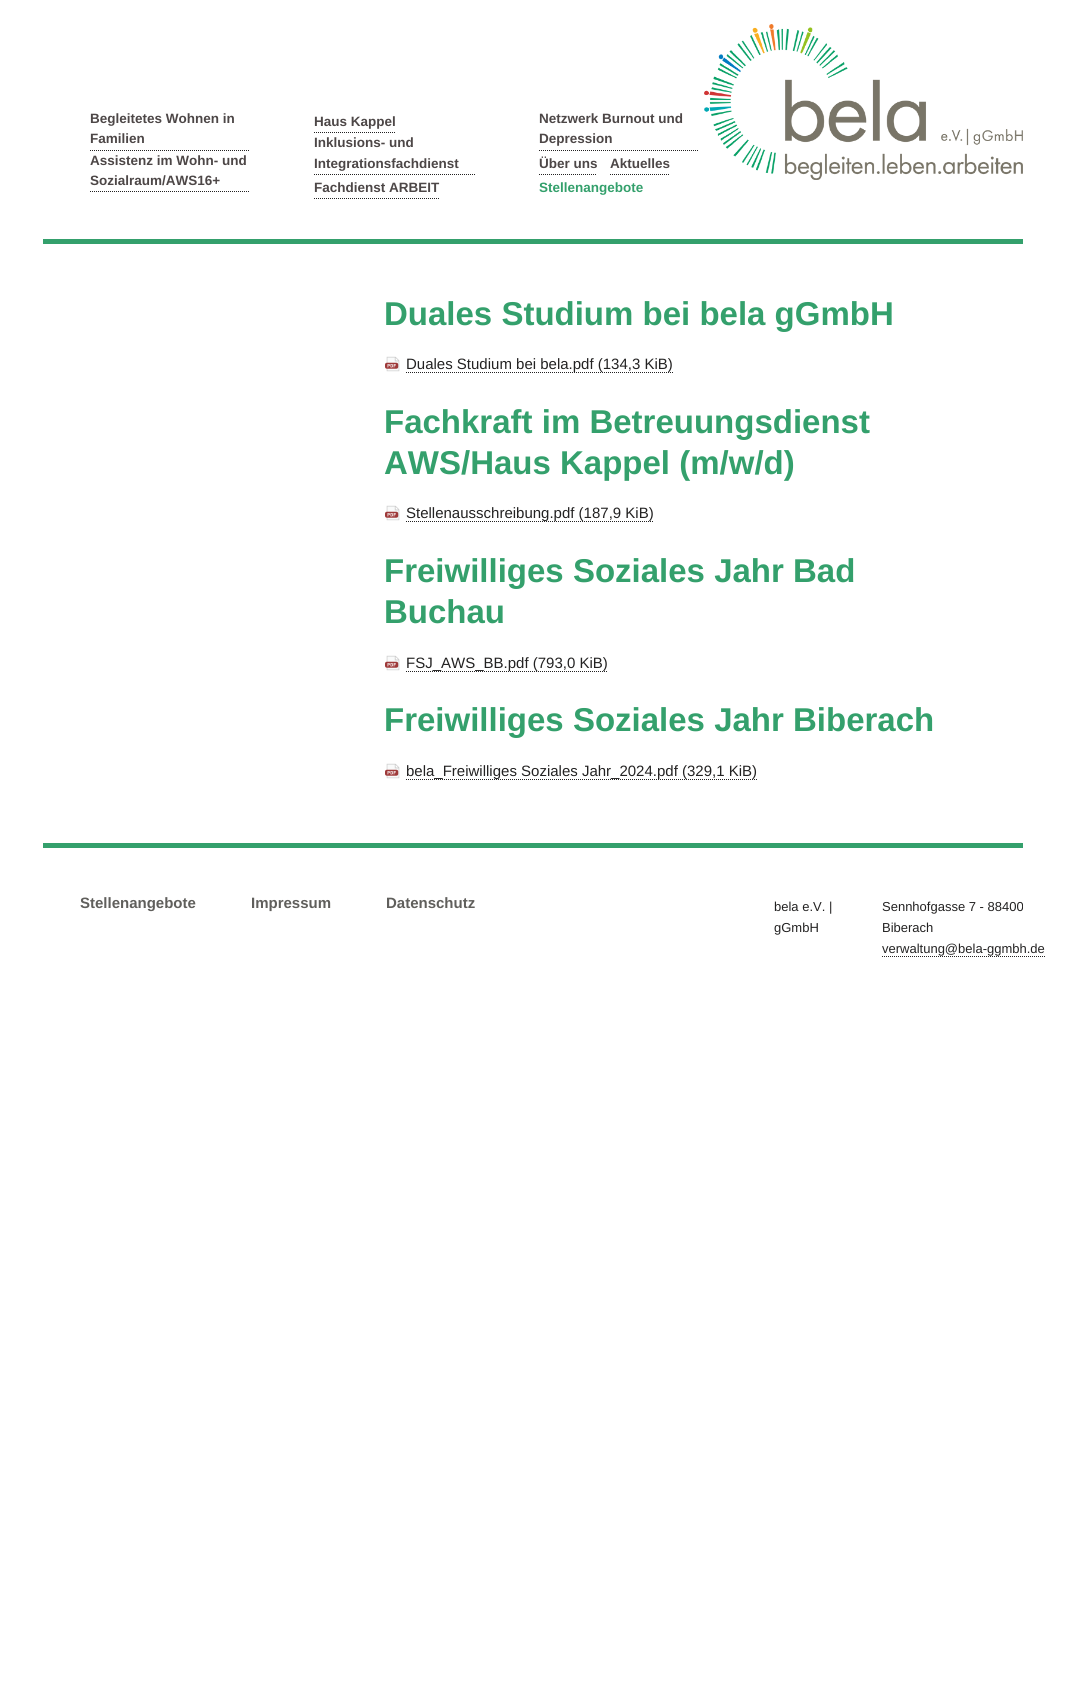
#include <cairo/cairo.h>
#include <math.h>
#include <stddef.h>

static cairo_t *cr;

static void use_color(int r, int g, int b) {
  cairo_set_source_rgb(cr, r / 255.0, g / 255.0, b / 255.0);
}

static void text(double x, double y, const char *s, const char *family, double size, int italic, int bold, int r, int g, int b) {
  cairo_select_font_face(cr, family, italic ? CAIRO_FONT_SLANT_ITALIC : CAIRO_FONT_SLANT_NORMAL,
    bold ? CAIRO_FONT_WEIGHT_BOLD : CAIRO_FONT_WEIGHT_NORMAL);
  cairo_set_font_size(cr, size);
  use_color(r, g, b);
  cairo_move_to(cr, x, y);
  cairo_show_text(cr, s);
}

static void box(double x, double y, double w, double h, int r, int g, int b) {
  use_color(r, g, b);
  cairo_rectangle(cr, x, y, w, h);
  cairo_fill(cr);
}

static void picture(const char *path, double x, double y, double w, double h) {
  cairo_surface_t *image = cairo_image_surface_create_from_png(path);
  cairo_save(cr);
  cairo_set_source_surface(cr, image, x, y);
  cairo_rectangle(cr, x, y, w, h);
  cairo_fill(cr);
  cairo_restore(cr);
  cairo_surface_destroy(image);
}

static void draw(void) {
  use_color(255, 255, 255);
  cairo_paint(cr);
  cairo_new_path(cr);
  cairo_move_to(cr, 90, 150.5);
  cairo_line_to(cr, 250, 150.5);
  use_color(35, 34, 34);
  cairo_set_line_width(cr, 1);
  cairo_set_dash(cr, (double[]){1, 1}, 2, 0);
  cairo_stroke(cr);
  cairo_new_path(cr);
  cairo_move_to(cr, 314, 132.5);
  cairo_line_to(cr, 396, 132.5);
  cairo_stroke(cr);
  cairo_new_path(cr);
  cairo_move_to(cr, 539, 150.5);
  cairo_line_to(cr, 699, 150.5);
  cairo_stroke(cr);
  cairo_new_path(cr);
  cairo_move_to(cr, 90, 191.5);
  cairo_line_to(cr, 250, 191.5);
  cairo_stroke(cr);
  cairo_new_path(cr);
  cairo_move_to(cr, 314, 174.5);
  cairo_line_to(cr, 475, 174.5);
  cairo_stroke(cr);
  cairo_new_path(cr);
  cairo_move_to(cr, 539, 174.5);
  cairo_line_to(cr, 597, 174.5);
  cairo_stroke(cr);
  cairo_new_path(cr);
  cairo_move_to(cr, 610, 174.5);
  cairo_line_to(cr, 670, 174.5);
  cairo_stroke(cr);
  cairo_new_path(cr);
  cairo_move_to(cr, 314, 198.5);
  cairo_line_to(cr, 439, 198.5);
  cairo_stroke(cr);
  picture("img_01.png", 704, 24, 319, 156);
  box(43, 239, 980, 5, 52, 160, 108);
  box(43, 843, 980, 5, 52, 160, 108);
  picture("img_02.png", 385, 356, 15, 16);
  cairo_new_path(cr);
  cairo_move_to(cr, 406, 372.5);
  cairo_line_to(cr, 598, 372.5);
  use_color(35, 34, 34);
  cairo_stroke(cr);
  cairo_new_path(cr);
  cairo_move_to(cr, 598, 372.5);
  cairo_line_to(cr, 673, 372.5);
  cairo_stroke(cr);
  picture("img_02.png", 385, 505, 15, 16);
  cairo_new_path(cr);
  cairo_move_to(cr, 406, 521.5);
  cairo_line_to(cr, 578, 521.5);
  cairo_stroke(cr);
  cairo_new_path(cr);
  cairo_move_to(cr, 578, 521.5);
  cairo_line_to(cr, 653, 521.5);
  cairo_stroke(cr);
  picture("img_02.png", 385, 655, 15, 16);
  cairo_new_path(cr);
  cairo_move_to(cr, 406, 671.5);
  cairo_line_to(cr, 532, 671.5);
  cairo_stroke(cr);
  cairo_new_path(cr);
  cairo_move_to(cr, 532, 671.5);
  cairo_line_to(cr, 608, 671.5);
  cairo_stroke(cr);
  picture("img_02.png", 385, 763, 15, 16);
  cairo_new_path(cr);
  cairo_move_to(cr, 406, 779.5);
  cairo_line_to(cr, 682, 779.5);
  cairo_stroke(cr);
  cairo_new_path(cr);
  cairo_move_to(cr, 682, 779.5);
  cairo_line_to(cr, 757, 779.5);
  cairo_stroke(cr);
  cairo_new_path(cr);
  cairo_move_to(cr, 882, 956.5);
  cairo_line_to(cr, 1030, 956.5);
  cairo_stroke(cr);
  cairo_new_path(cr);
  cairo_move_to(cr, 1030, 956.5);
  cairo_line_to(cr, 1045, 956.5);
  cairo_stroke(cr);
  text(90, 123, "Begleitetes Wohnen in", "Liberation Sans", 13.5, 0, 1, 77, 71, 71);
  text(90, 143, "Familien", "Liberation Sans", 13.5, 0, 1, 77, 71, 71);
  text(314, 126, "Haus Kappel", "Liberation Sans", 13.5, 0, 1, 77, 71, 71);
  text(539, 123, "Netzwerk Burnout und", "Liberation Sans", 13.5, 0, 1, 77, 71, 71);
  text(539, 143, "Depression", "Liberation Sans", 13.5, 0, 1, 77, 71, 71);
  text(90, 165, "Assistenz im Wohn- und", "Liberation Sans", 13.5, 0, 1, 77, 71, 71);
  text(90, 185, "Sozialraum/AWS16+", "Liberation Sans", 13.5, 0, 1, 77, 71, 71);
  text(314, 147, "Inklusions- und", "Liberation Sans", 13.5, 0, 1, 77, 71, 71);
  text(314, 168, "Integrationsfachdienst", "Liberation Sans", 13.5, 0, 1, 77, 71, 71);
  text(539, 168, "Über uns", "Liberation Sans", 13.5, 0, 1, 77, 71, 71);
  text(610, 168, "Aktuelles", "Liberation Sans", 13.5, 0, 1, 77, 71, 71);
  text(314, 192, "Fachdienst ARBEIT", "Liberation Sans", 13.5, 0, 1, 77, 71, 71);
  text(539, 192, "Stellenangebote", "Liberation Sans", 13.5, 0, 1, 52, 160, 108);
  text(384, 325, "Duales Studium bei bela gGmbH", "Liberation Sans", 33, 0, 1, 52, 160, 108);
  text(406, 369, "Duales Studium bei bela.pdf (134,3 KiB)", "Liberation Sans", 15, 0, 0, 35, 34, 34);
  text(384, 433, "Fachkraft im Betreuungsdienst", "Liberation Sans", 33, 0, 1, 52, 160, 108);
  text(384, 474, "AWS/Haus Kappel (m/w/d)", "Liberation Sans", 33, 0, 1, 52, 160, 108);
  text(406, 518, "Stellenausschreibung.pdf (187,9 KiB)", "Liberation Sans", 15, 0, 0, 35, 34, 34);
  text(384, 582, "Freiwilliges Soziales Jahr Bad", "Liberation Sans", 33, 0, 1, 52, 160, 108);
  text(384, 623, "Buchau", "Liberation Sans", 33, 0, 1, 52, 160, 108);
  text(406, 668, "FSJ_AWS_BB.pdf (793,0 KiB)", "Liberation Sans", 15, 0, 0, 35, 34, 34);
  text(384, 731, "Freiwilliges Soziales Jahr Biberach", "Liberation Sans", 33, 0, 1, 52, 160, 108);
  text(406, 776, "bela_Freiwilliges Soziales Jahr_2024.pdf (329,1 KiB)", "Liberation Sans", 15, 0, 0, 35, 34, 34);
  text(80, 908, "Stellenangebote", "Liberation Sans", 15, 0, 1, 96, 95, 92);
  text(251, 908, "Impressum", "Liberation Sans", 15, 0, 1, 96, 95, 92);
  text(386, 908, "Datenschutz", "Liberation Sans", 15, 0, 1, 96, 95, 92);
  text(774, 911, "bela e.V. |", "Liberation Sans", 13, 0, 0, 35, 34, 34);
  text(774, 932, "gGmbH", "Liberation Sans", 13, 0, 0, 35, 34, 34);
  text(882, 911, "Sennhofgasse 7 - 88400", "Liberation Sans", 13, 0, 0, 35, 34, 34);
  text(882, 932, "Biberach", "Liberation Sans", 13, 0, 0, 35, 34, 34);
  text(882, 953, "verwaltung@bela-ggmbh.de", "Liberation Sans", 13, 0, 0, 35, 34, 34);
}

int main(void) {
  cairo_surface_t *surface = cairo_image_surface_create(CAIRO_FORMAT_RGB24, 1066, 1699);
  cr = cairo_create(surface);
  cairo_font_options_t *options = cairo_font_options_create();
  cairo_font_options_set_hint_metrics(options, CAIRO_HINT_METRICS_OFF);
  cairo_font_options_set_hint_style(options, CAIRO_HINT_STYLE_NONE);
  cairo_set_font_options(cr, options);
  cairo_set_miter_limit(cr, 4);
  draw();
  cairo_surface_write_to_png(surface, "out.png");
  cairo_font_options_destroy(options);
  cairo_destroy(cr);
  cairo_surface_destroy(surface);
  return 0;
}
